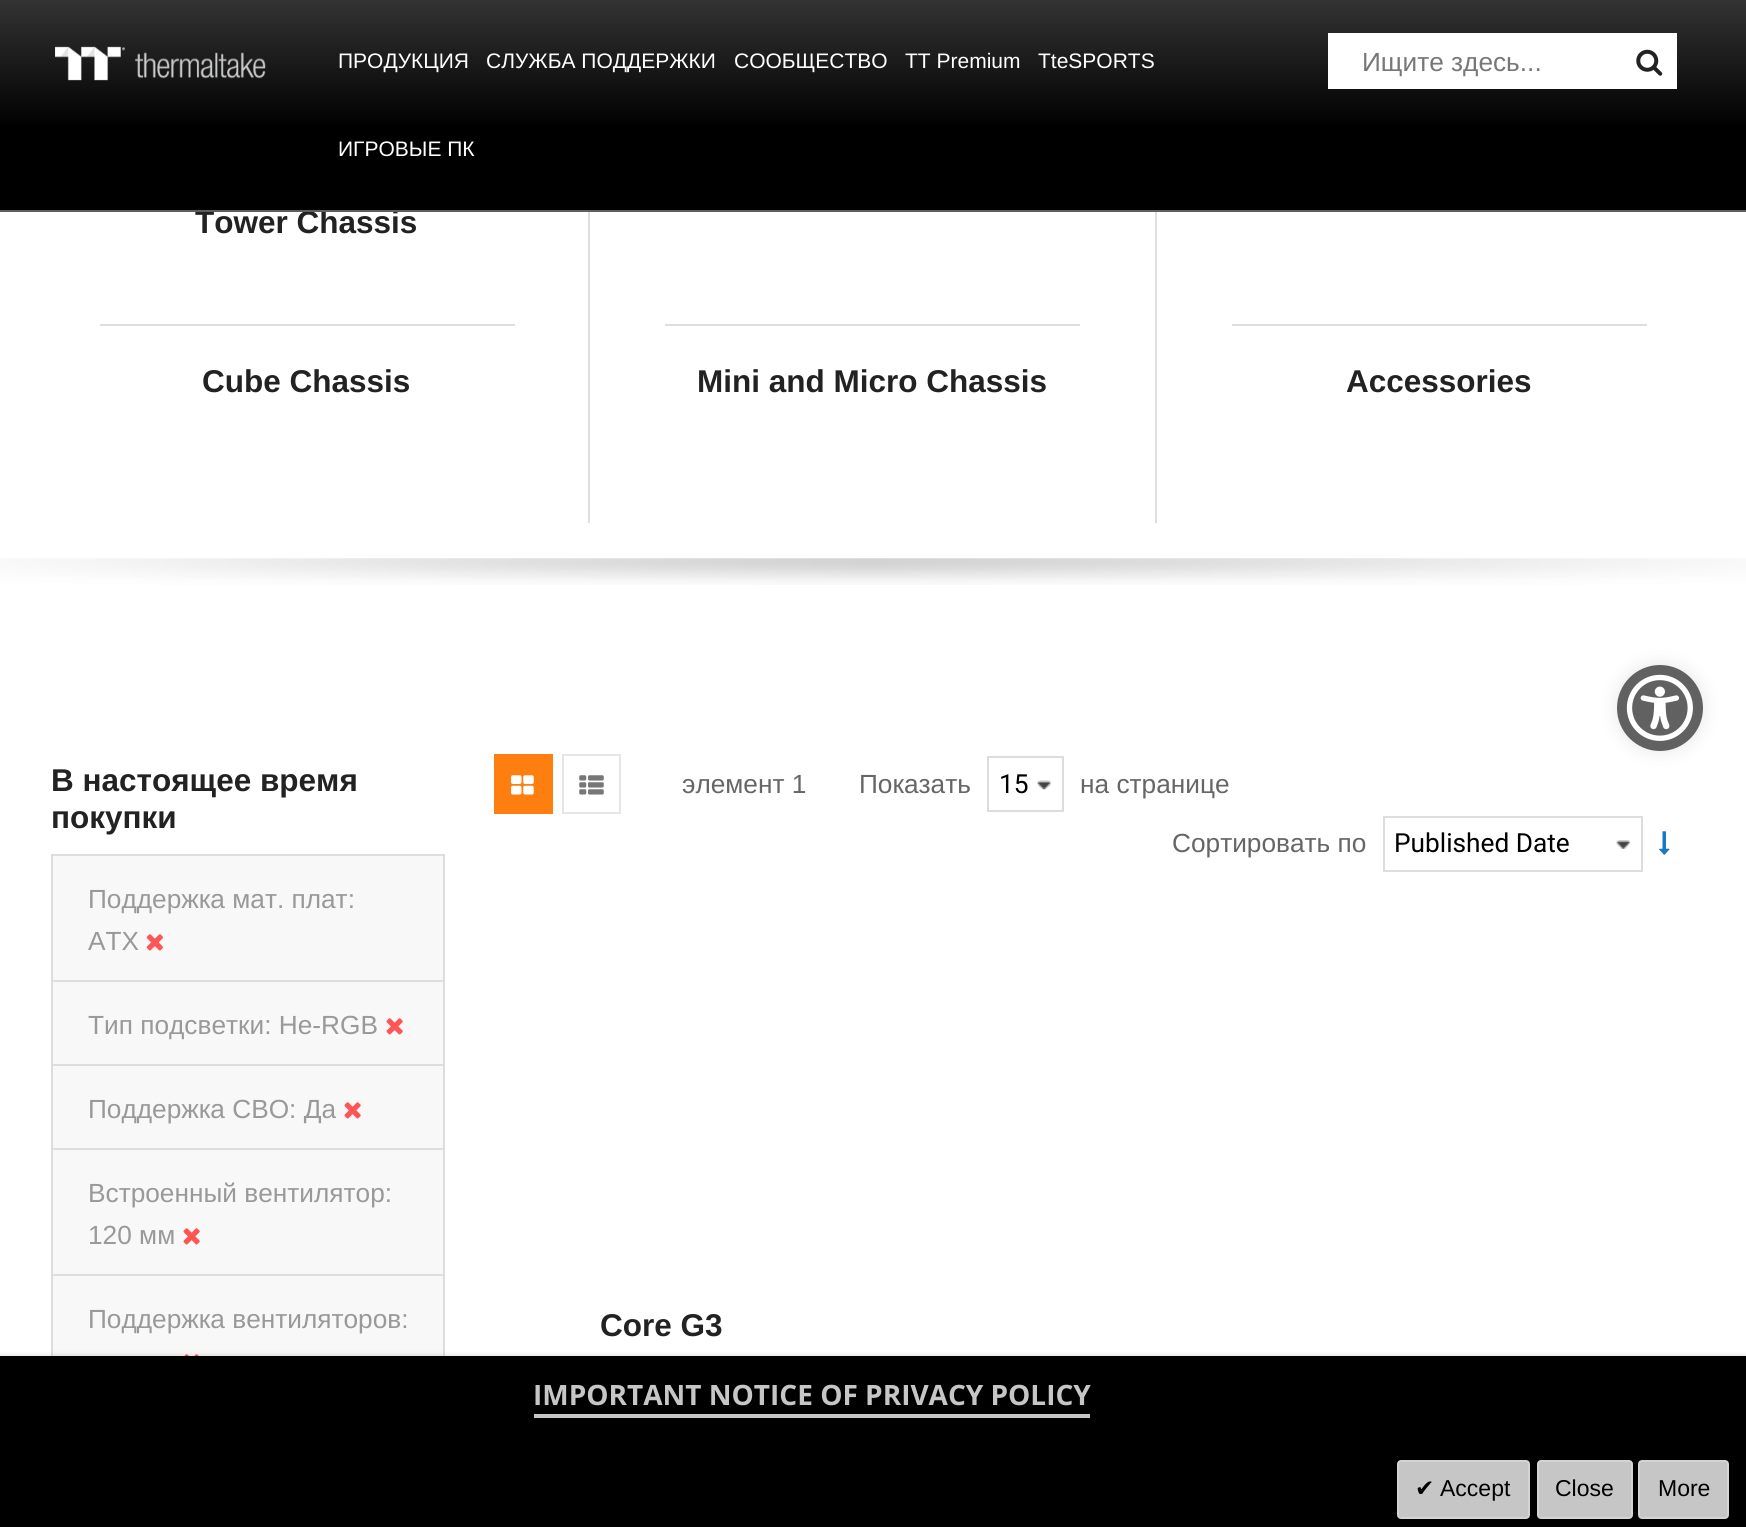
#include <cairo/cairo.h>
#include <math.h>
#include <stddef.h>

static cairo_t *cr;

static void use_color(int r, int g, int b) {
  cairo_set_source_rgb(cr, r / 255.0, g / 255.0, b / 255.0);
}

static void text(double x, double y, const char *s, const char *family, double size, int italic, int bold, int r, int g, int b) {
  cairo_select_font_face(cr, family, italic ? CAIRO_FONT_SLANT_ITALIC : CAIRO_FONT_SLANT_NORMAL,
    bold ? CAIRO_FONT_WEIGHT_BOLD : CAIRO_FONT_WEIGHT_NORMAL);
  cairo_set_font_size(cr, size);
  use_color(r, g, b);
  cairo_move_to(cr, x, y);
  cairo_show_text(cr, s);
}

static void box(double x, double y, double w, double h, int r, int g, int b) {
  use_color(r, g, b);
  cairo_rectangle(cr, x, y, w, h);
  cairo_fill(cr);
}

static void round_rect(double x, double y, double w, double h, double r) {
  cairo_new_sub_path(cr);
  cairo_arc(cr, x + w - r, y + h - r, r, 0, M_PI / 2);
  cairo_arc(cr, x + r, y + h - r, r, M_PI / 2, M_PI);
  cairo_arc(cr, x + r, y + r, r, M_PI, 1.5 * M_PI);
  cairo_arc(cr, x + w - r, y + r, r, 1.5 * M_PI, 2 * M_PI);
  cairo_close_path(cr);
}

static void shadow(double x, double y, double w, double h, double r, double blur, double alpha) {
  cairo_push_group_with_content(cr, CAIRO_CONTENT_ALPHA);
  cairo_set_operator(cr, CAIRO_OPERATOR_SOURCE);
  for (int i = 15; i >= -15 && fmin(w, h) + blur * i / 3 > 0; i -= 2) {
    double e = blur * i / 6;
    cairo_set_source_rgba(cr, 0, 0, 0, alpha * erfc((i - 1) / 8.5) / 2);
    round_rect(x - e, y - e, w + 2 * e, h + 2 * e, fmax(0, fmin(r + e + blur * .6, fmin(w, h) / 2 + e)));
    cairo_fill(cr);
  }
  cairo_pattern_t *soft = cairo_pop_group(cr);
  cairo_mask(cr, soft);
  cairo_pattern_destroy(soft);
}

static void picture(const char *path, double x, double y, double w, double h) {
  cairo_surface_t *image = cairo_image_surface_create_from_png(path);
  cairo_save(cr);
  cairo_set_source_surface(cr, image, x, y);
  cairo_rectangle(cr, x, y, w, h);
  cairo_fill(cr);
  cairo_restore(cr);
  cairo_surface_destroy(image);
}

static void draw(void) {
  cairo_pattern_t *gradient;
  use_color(255, 255, 255);
  cairo_paint(cr);
  gradient = cairo_pattern_create_linear(873, 0, 873, 210);
  cairo_pattern_add_color_stop_rgba(gradient, 0, 0.2, 0.2, 0.2, 1);
  cairo_pattern_add_color_stop_rgba(gradient, 0.61, 0, 0, 0, 1);
  cairo_set_source(cr, gradient);
  cairo_pattern_destroy(gradient);
  cairo_rectangle(cr, 0, 0, 1746, 210);
  cairo_fill(cr);
  picture("img_01.png", 55, 46, 211, 35);
  box(1328, 33, 349, 56, 255, 255, 255);
  picture("img_02.png", 1636, 49, 27, 27);
  box(588, 212, 2, 311, 222, 222, 222);
  box(1155, 212, 2, 311, 222, 222, 222);
  box(100, 324, 415, 2, 222, 222, 222);
  box(665, 324, 415, 2, 222, 222, 222);
  box(1232, 324, 415, 2, 222, 222, 222);
  picture("img_03.png", 0, 558, 1746, 27);
  box(51, 854, 394, 2, 221, 221, 221);
  box(443, 854, 2, 502, 221, 221, 221);
  box(51, 854, 2, 502, 221, 221, 221);
  box(53, 856, 390, 124, 248, 248, 248);
  box(53, 980, 390, 2, 221, 221, 221);
  picture("img_04.png", 146, 934, 17, 17);
  box(53, 982, 390, 82, 248, 248, 248);
  box(53, 1064, 390, 2, 221, 221, 221);
  picture("img_05.png", 386, 1018, 17, 17);
  box(53, 1066, 390, 82, 248, 248, 248);
  box(53, 1148, 390, 2, 221, 221, 221);
  picture("img_05.png", 344, 1102, 17, 17);
  box(53, 1150, 390, 124, 248, 248, 248);
  box(53, 1274, 390, 2, 221, 221, 221);
  picture("img_05.png", 183, 1228, 17, 17);
  box(53, 1276, 390, 80, 248, 248, 248);
  picture("img_06.png", 184, 1354, 15, 2);
  box(494, 754, 59, 60, 255, 126, 16);
  picture("img_07.png", 511, 775, 23, 20);
  cairo_rectangle(cr, 563, 755, 57, 58);
  use_color(229, 229, 229);
  cairo_stroke(cr);
  picture("img_08.png", 579, 775, 25, 20);
  picture("img_09.png", 1037, 780, 15, 10);
  cairo_rectangle(cr, 988, 757, 75, 54);
  use_color(221, 221, 221);
  cairo_stroke(cr);
  picture("img_10.png", 1616, 840, 15, 9);
  cairo_rectangle(cr, 1384, 817, 258, 54);
  cairo_stroke(cr);
  picture("img_11.png", 1659, 831, 11, 24);
  use_color(0, 0, 0);
  shadow(0, 1360, 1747, 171, 0, 4.5, 0.47);
  box(0, 1356, 1746, 171, 0, 0, 0);
  box(534, 1414, 556, 4, 198, 198, 198);
  round_rect(1398, 1461, 131, 57, 3);
  cairo_fill_preserve(cr);
  use_color(212, 212, 212);
  cairo_stroke(cr);
  use_color(198, 198, 198);
  round_rect(1538, 1461, 94, 57, 3);
  cairo_fill_preserve(cr);
  use_color(212, 212, 212);
  cairo_stroke(cr);
  use_color(198, 198, 198);
  round_rect(1639, 1461, 89, 57, 3);
  cairo_fill_preserve(cr);
  use_color(212, 212, 212);
  cairo_stroke(cr);
  use_color(0, 0, 0);
  shadow(1617, 665, 86, 86, 43, 9, 0.1);
  use_color(97, 97, 97);
  cairo_arc(cr, 1660, 708, 43, 0, 2 * M_PI);
  cairo_fill(cr);
  picture("img_12.png", 1626, 674, 67, 67);
  text(338, 68, "ПРОДУКЦИЯ", "Liberation Sans", 21, 0, 0, 255, 255, 255);
  text(486, 68, "СЛУЖБА ПОДДЕРЖКИ", "Liberation Sans", 21, 0, 0, 255, 255, 255);
  text(734, 68, "CООБЩЕСТВО", "Liberation Sans", 21, 0, 0, 255, 255, 255);
  text(905, 68, "TT Premium", "Liberation Sans", 21, 0, 0, 255, 255, 255);
  text(1038, 68, "TteSPORTS", "Liberation Sans", 21, 0, 0, 255, 255, 255);
  text(338, 156, "ИГРОВЫЕ ПК", "Liberation Sans", 21, 0, 0, 255, 255, 255);
  text(1362, 71, "Ищите здесь...", "Liberation Sans", 26.25, 0, 0, 119, 119, 119);
  text(195, 233, "Tower Chassis", "Liberation Sans", 31.5, 0, 1, 34, 34, 34);
  box(0, 210, 1746, 2, 95, 95, 95);
  text(202, 392, "Cube Chassis", "Liberation Sans", 31.5, 0, 1, 34, 34, 34);
  text(697, 392, "Mini and Micro Chassis", "Liberation Sans", 31.5, 0, 1, 34, 34, 34);
  text(1346, 392, "Accessories", "Liberation Sans", 31.5, 0, 1, 34, 34, 34);
  text(51, 791, "В настоящее время", "Liberation Sans", 31.5, 0, 1, 34, 34, 34);
  text(51, 828, "покупки", "Liberation Sans", 31.5, 0, 1, 34, 34, 34);
  text(88, 908, "Поддержка мат. плат:", "Liberation Sans", 26.25, 0, 0, 153, 153, 153);
  text(88, 950, "ATX", "Liberation Sans", 26.25, 0, 0, 153, 153, 153);
  text(88, 1034, "Тип подсветки: Не-RGB", "Liberation Sans", 26.25, 0, 0, 153, 153, 153);
  text(88, 1118, "Поддержка СВО: Да", "Liberation Sans", 26.25, 0, 0, 153, 153, 153);
  text(88, 1202, "Встроенный вентилятор:", "Liberation Sans", 26.25, 0, 0, 153, 153, 153);
  text(88, 1244, "120 мм", "Liberation Sans", 26.25, 0, 0, 153, 153, 153);
  text(88, 1328, "Поддержка вентиляторов:", "Liberation Sans", 26.25, 0, 0, 153, 153, 153);
  text(682, 793, "элемент 1", "Liberation Sans", 26.25, 0, 0, 102, 102, 102);
  text(859, 793, "Показать", "Liberation Sans", 26.25, 0, 0, 102, 102, 102);
  text(999, 793, "15", "Roboto", 26.25, 0, 0, 0, 0, 0);
  text(1080, 793, "на странице", "Liberation Sans", 26.25, 0, 0, 102, 102, 102);
  text(1172, 852, "Сортировать по", "Liberation Sans", 26.25, 0, 0, 102, 102, 102);
  text(1394, 852, "Published Date", "Roboto", 26.25, 0, 0, 0, 0, 0);
  text(600, 1336, "Core G3", "Liberation Sans", 31.5, 0, 1, 34, 34, 34);
  text(533, 1405, "IMPORTANT NOTICE OF PRIVACY POLICY", "Open Sans", 28, 0, 1, 198, 198, 198);
  text(1415, 1496, "✔", "DejaVu Sans", 23, 0, 0, 0, 0, 0);
  text(1440, 1496, "Accept", "Liberation Sans", 23, 0, 0, 0, 0, 0);
  text(1555, 1496, "Close", "Liberation Sans", 23, 0, 0, 0, 0, 0);
  text(1658, 1496, "More", "Liberation Sans", 23, 0, 0, 0, 0, 0);
}

int main(void) {
  cairo_surface_t *surface = cairo_image_surface_create(CAIRO_FORMAT_RGB24, 1746, 1527);
  cr = cairo_create(surface);
  cairo_font_options_t *options = cairo_font_options_create();
  cairo_font_options_set_hint_metrics(options, CAIRO_HINT_METRICS_OFF);
  cairo_font_options_set_hint_style(options, CAIRO_HINT_STYLE_NONE);
  cairo_set_font_options(cr, options);
  cairo_set_miter_limit(cr, 4);
  draw();
  cairo_surface_write_to_png(surface, "out.png");
  cairo_font_options_destroy(options);
  cairo_destroy(cr);
  cairo_surface_destroy(surface);
  return 0;
}
